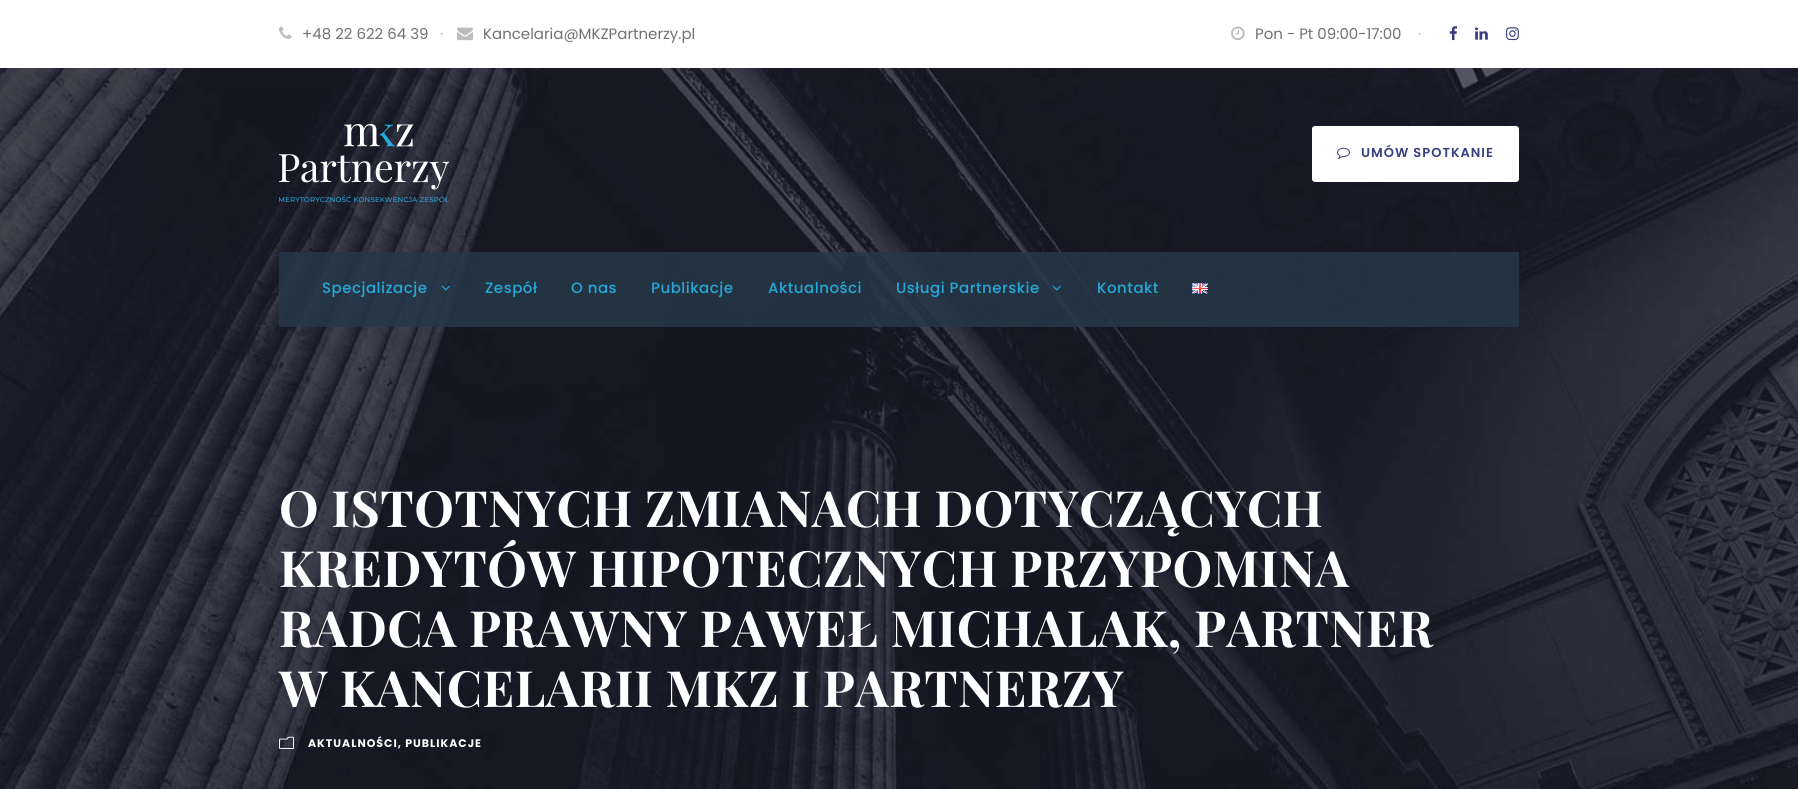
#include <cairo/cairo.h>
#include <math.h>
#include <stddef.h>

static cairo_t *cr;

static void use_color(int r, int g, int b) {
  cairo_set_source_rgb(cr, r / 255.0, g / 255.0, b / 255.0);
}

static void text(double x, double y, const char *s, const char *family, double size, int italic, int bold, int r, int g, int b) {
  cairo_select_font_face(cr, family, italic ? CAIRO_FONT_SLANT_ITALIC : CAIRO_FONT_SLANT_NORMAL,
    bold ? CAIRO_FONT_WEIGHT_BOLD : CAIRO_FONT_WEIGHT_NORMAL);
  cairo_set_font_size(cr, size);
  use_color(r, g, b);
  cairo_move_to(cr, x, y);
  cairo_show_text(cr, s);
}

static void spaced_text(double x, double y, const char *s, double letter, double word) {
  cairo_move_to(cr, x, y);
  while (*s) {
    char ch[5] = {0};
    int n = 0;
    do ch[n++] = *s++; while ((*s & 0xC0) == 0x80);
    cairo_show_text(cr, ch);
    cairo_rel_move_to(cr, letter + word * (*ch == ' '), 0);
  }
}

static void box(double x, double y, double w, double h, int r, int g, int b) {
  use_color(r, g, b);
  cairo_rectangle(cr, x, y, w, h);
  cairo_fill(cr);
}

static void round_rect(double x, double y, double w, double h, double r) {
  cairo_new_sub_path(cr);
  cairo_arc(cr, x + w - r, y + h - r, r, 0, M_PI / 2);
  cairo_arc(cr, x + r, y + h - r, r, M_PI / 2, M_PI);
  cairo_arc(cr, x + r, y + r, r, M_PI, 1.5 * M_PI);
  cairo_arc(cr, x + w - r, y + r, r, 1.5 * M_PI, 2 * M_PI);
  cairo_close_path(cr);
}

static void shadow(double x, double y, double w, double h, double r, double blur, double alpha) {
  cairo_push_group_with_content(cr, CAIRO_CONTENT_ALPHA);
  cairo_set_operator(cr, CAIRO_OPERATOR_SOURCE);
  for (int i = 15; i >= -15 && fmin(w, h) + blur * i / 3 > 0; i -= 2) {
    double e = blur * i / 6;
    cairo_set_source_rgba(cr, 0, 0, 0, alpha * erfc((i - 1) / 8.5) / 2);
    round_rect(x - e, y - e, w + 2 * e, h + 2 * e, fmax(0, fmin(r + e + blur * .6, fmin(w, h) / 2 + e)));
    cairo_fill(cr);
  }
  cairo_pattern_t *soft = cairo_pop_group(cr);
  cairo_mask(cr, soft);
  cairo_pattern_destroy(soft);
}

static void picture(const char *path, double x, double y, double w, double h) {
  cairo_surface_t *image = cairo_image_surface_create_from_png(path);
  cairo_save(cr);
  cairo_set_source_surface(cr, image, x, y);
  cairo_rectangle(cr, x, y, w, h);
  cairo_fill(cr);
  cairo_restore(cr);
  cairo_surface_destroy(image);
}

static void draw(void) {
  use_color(255, 255, 255);
  cairo_paint(cr);
  picture("img_12.png", 0, 68, 1798, 721);
  use_color(94, 48, 48);
  shadow(0, 0, 1798, 68, 0, 12, 0.1);
  box(0, 0, 1798, 68, 255, 255, 255);
  picture("img_01.png", 279, 26, 13, 13);
  picture("img_02.png", 457, 27, 16, 14);
  picture("img_03.png", 1231, 26, 14, 15);
  picture("img_04.png", 1449, 26, 9, 15);
  picture("img_05.png", 1475, 27, 13, 13);
  picture("img_06.png", 1506, 27, 13, 14);
  picture("img_07.png", 279, 124, 170, 78);
  round_rect(1312, 126, 207, 56, 3);
  cairo_fill(cr);
  picture("img_08.png", 1337, 147, 13, 12);
  cairo_set_source_rgba(cr, 0.149, 0.216, 0.282, 0.85);
  cairo_rectangle(cr, 279, 252, 1240, 75);
  cairo_fill(cr);
  picture("img_09.png", 441, 285, 9, 6);
  picture("img_10.png", 1052, 285, 9, 6);
  picture("img_11.png", 1192, 283, 16, 11);
  picture("img_13.png", 279, 736, 15, 13);
  text(302, 39, "+48 22 622 64 39", "Poppins", 15, 0, 0, 113, 113, 113);
  text(440, 39, "·", "Poppins", 15, 0, 0, 189, 189, 189);
  text(483, 39, "Kancelaria@MKZPartnerzy.pl", "Poppins", 15, 0, 0, 113, 113, 113);
  text(1255, 39, "Pon - Pt 09:00-17:00", "Poppins", 15, 0, 0, 113, 113, 113);
  text(1418, 39, "·", "Poppins", 15, 0, 0, 189, 189, 189);
  cairo_select_font_face(cr, "Poppins SemiBold", CAIRO_FONT_SLANT_NORMAL, CAIRO_FONT_WEIGHT_NORMAL);
  cairo_set_font_size(cr, 13);
  use_color(58, 62, 127);
  spaced_text(1361, 157, "UMÓW SPOTKANIE", 1, 0);
  cairo_select_font_face(cr, "Poppins Medium", CAIRO_FONT_SLANT_NORMAL, CAIRO_FONT_WEIGHT_NORMAL);
  cairo_set_font_size(cr, 15);
  use_color(37, 169, 217);
  spaced_text(322, 293, "Specjalizacje", 0.5, 0);
  spaced_text(485, 293, "Zespół", 0.5, 0);
  spaced_text(571, 293, "O nas", 0.5, 0);
  spaced_text(651, 293, "Publikacje", 0.5, 0);
  spaced_text(768, 293, "Aktualności", 0.5, 0);
  spaced_text(896, 293, "Usługi Partnerskie", 0.5, 0);
  spaced_text(1097, 293, "Kontakt", 0.5, 0);
  cairo_select_font_face(cr, "Playfair Display", CAIRO_FONT_SLANT_NORMAL, CAIRO_FONT_WEIGHT_BOLD);
  cairo_set_font_size(cr, 50);
  use_color(255, 255, 255);
  spaced_text(279, 527, "O ISTOTNYCH ZMIANACH DOTYCZĄCYCH", 0.5, 0);
  spaced_text(279, 587, "KREDYTÓW HIPOTECZNYCH PRZYPOMINA", 0.5, 0);
  spaced_text(279, 647, "RADCA PRAWNY PAWEŁ MICHALAK, PARTNER", 0.5, 0);
  spaced_text(279, 707, "W KANCELARII MKZ I PARTNERZY", 0.5, 0);
  cairo_select_font_face(cr, "Poppins", CAIRO_FONT_SLANT_NORMAL, CAIRO_FONT_WEIGHT_BOLD);
  cairo_set_font_size(cr, 11);
  spaced_text(308, 747, "AKTUALNOŚCI, PUBLIKACJE", 1, 0);
}

int main(void) {
  cairo_surface_t *surface = cairo_image_surface_create(CAIRO_FORMAT_RGB24, 1798, 789);
  cr = cairo_create(surface);
  cairo_font_options_t *options = cairo_font_options_create();
  cairo_font_options_set_hint_metrics(options, CAIRO_HINT_METRICS_OFF);
  cairo_font_options_set_hint_style(options, CAIRO_HINT_STYLE_NONE);
  cairo_set_font_options(cr, options);
  cairo_set_miter_limit(cr, 4);
  draw();
  cairo_surface_write_to_png(surface, "out.png");
  cairo_font_options_destroy(options);
  cairo_destroy(cr);
  cairo_surface_destroy(surface);
  return 0;
}
